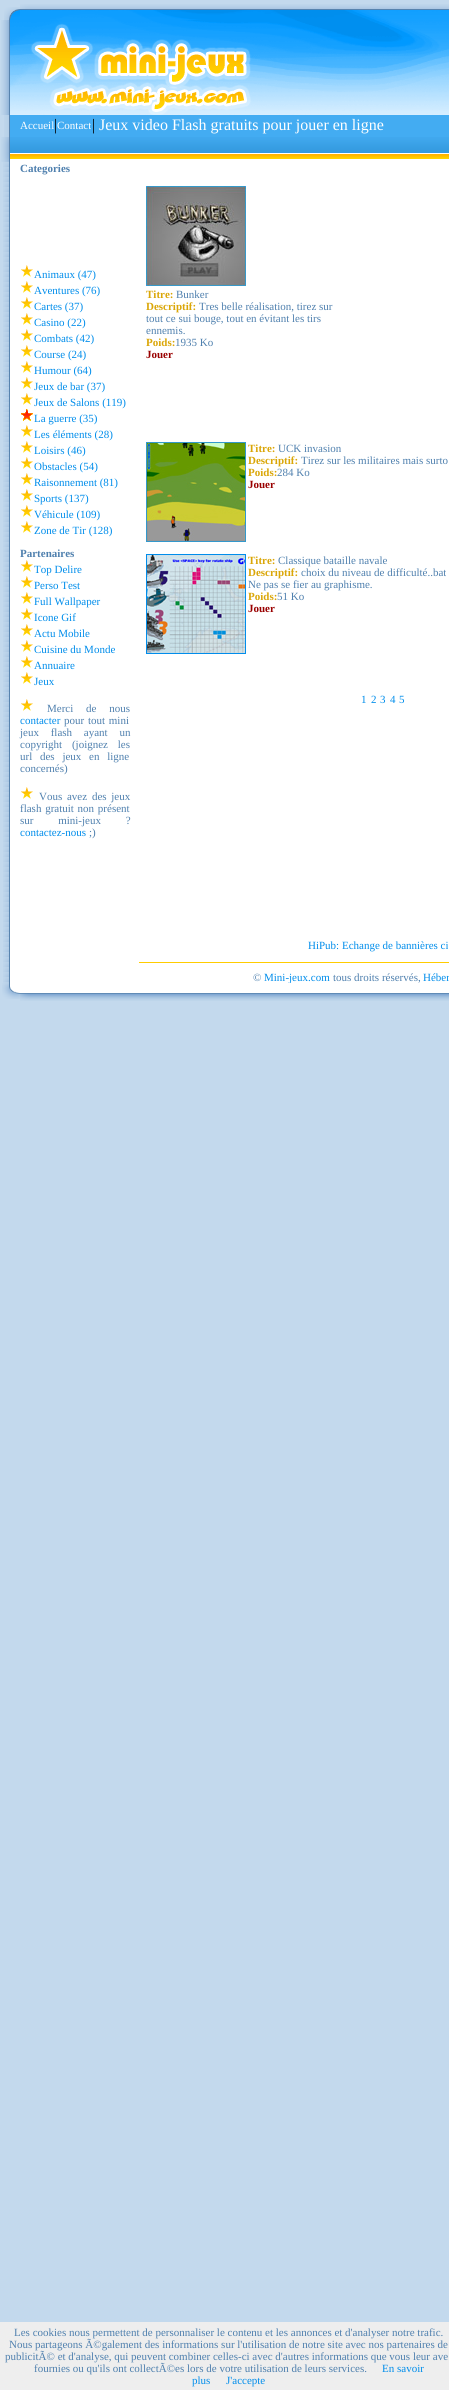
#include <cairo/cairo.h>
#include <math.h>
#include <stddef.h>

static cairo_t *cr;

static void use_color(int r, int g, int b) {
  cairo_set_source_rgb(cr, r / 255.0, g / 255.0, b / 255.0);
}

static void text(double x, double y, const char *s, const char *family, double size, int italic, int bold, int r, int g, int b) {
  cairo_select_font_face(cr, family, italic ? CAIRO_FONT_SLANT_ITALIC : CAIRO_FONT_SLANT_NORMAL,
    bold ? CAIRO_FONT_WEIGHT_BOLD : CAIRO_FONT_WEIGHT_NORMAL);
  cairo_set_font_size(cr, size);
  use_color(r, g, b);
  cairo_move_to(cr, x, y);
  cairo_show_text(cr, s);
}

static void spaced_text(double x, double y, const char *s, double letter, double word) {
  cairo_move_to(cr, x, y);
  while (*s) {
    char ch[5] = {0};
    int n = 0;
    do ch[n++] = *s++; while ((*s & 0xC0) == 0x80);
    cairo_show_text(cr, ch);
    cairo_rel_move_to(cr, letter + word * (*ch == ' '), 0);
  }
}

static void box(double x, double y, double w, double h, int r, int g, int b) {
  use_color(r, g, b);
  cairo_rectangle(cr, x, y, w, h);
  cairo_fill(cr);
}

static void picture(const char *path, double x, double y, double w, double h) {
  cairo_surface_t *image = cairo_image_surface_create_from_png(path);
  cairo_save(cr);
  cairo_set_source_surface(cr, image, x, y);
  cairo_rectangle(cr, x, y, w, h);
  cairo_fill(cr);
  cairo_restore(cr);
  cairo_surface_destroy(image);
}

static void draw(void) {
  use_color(195, 217, 237);
  cairo_paint(cr);
  picture("img_01.png", 4, 7, 16, 13);
  picture("img_02.png", 20, 4, 429, 16);
  picture("img_03.png", 1, 20, 259, 95);
  picture("img_04.png", 260, 20, 189, 95);
  picture("img_05.png", 4, 115, 16, 22);
  box(20, 115, 429, 22, 67, 172, 242);
  picture("img_06.png", 1, 137, 19, 25);
  picture("img_07.png", 20, 137, 429, 25);
  picture("img_08.png", 3, 162, 17, 821);
  box(20, 162, 429, 821, 255, 255, 255);
  picture("img_09.png", 21, 265, 12, 12);
  picture("img_09.png", 21, 281, 12, 12);
  picture("img_09.png", 21, 297, 12, 12);
  picture("img_09.png", 21, 313, 12, 12);
  picture("img_09.png", 21, 329, 12, 12);
  picture("img_09.png", 21, 345, 12, 12);
  picture("img_09.png", 21, 361, 12, 12);
  picture("img_09.png", 21, 377, 12, 12);
  picture("img_09.png", 21, 393, 12, 12);
  picture("img_10.png", 21, 409, 12, 12);
  picture("img_09.png", 21, 425, 12, 12);
  picture("img_09.png", 21, 441, 12, 12);
  picture("img_09.png", 21, 457, 12, 12);
  picture("img_09.png", 21, 473, 12, 12);
  picture("img_09.png", 21, 489, 12, 12);
  picture("img_09.png", 21, 505, 12, 12);
  picture("img_09.png", 21, 521, 12, 12);
  picture("img_09.png", 21, 560, 12, 12);
  picture("img_09.png", 21, 576, 12, 12);
  picture("img_09.png", 21, 592, 12, 12);
  picture("img_09.png", 21, 608, 12, 12);
  picture("img_09.png", 21, 624, 12, 12);
  picture("img_09.png", 21, 640, 12, 12);
  picture("img_09.png", 21, 656, 12, 12);
  picture("img_09.png", 21, 672, 12, 12);
  picture("img_09.png", 21, 699, 12, 12);
  picture("img_09.png", 21, 787, 12, 12);
  picture("img_11.png", 146, 186, 100, 100);
  picture("img_12.png", 146, 442, 100, 100);
  picture("img_13.png", 146, 554, 100, 100);
  box(139, 962, 310, 1, 255, 204, 0);
  picture("img_14.png", 2, 983, 18, 16);
  box(0, 2322, 449, 68, 238, 238, 238);
  text(20, 129, "Accueil", "Liberation Serif", 11, 0, 0, 255, 255, 255);
  text(54, 130, "|", "Liberation Serif", 16, 0, 0, 0, 0, 0);
  text(57, 129, "Contact", "Liberation Serif", 11, 0, 0, 255, 255, 255);
  text(92, 130, "|", "Liberation Serif", 16, 0, 0, 0, 0, 0);
  text(99, 130, "Jeux video Flash gratuits pour jouer en ligne", "Liberation Serif", 16, 0, 0, 255, 255, 255);
  text(20, 172, "Categories", "Liberation Serif", 11, 0, 1, 79, 128, 174);
  text(34, 278, "Animaux (47)", "Liberation Serif", 11, 0, 0, 0, 141, 235);
  text(34, 294, "Aventures (76)", "Liberation Serif", 11, 0, 0, 0, 141, 235);
  text(34, 310, "Cartes (37)", "Liberation Serif", 11, 0, 0, 0, 141, 235);
  text(34, 326, "Casino (22)", "Liberation Serif", 11, 0, 0, 0, 141, 235);
  text(34, 342, "Combats (42)", "Liberation Serif", 11, 0, 0, 0, 141, 235);
  text(34, 358, "Course (24)", "Liberation Serif", 11, 0, 0, 0, 141, 235);
  text(34, 374, "Humour (64)", "Liberation Serif", 11, 0, 0, 0, 141, 235);
  text(34, 390, "Jeux de bar (37)", "Liberation Serif", 11, 0, 0, 0, 141, 235);
  text(34, 406, "Jeux de Salons (119)", "Liberation Serif", 11, 0, 0, 0, 141, 235);
  text(34, 422, "La guerre (35)", "Liberation Serif", 11, 0, 0, 0, 141, 235);
  text(34, 438, "Les éléments (28)", "Liberation Serif", 11, 0, 0, 0, 141, 235);
  text(34, 454, "Loisirs (46)", "Liberation Serif", 11, 0, 0, 0, 141, 235);
  text(34, 470, "Obstacles (54)", "Liberation Serif", 11, 0, 0, 0, 141, 235);
  text(34, 486, "Raisonnement (81)", "Liberation Serif", 11, 0, 0, 0, 141, 235);
  text(34, 502, "Sports (137)", "Liberation Serif", 11, 0, 0, 0, 141, 235);
  text(34, 518, "Véhicule (109)", "Liberation Serif", 11, 0, 0, 0, 141, 235);
  text(34, 534, "Zone de Tir (128)", "Liberation Serif", 11, 0, 0, 0, 141, 235);
  text(20, 557, "Partenaires", "Liberation Serif", 11, 0, 1, 79, 128, 174);
  text(34, 573, "Top Delire", "Liberation Serif", 11, 0, 0, 0, 141, 235);
  text(34, 589, "Perso Test", "Liberation Serif", 11, 0, 0, 0, 141, 235);
  text(34, 605, "Full Wallpaper", "Liberation Serif", 11, 0, 0, 0, 141, 235);
  text(34, 621, "Icone Gif", "Liberation Serif", 11, 0, 0, 0, 141, 235);
  text(34, 637, "Actu Mobile", "Liberation Serif", 11, 0, 0, 0, 141, 235);
  text(34, 653, "Cuisine du Monde", "Liberation Serif", 11, 0, 0, 0, 141, 235);
  text(34, 669, "Annuaire", "Liberation Serif", 11, 0, 0, 0, 141, 235);
  text(34, 685, "Jeux", "Liberation Serif", 11, 0, 0, 0, 141, 235);
  use_color(79, 128, 174);
  spaced_text(47, 712, "Merci de nous", 0, 10);
  text(20, 724, "contacter", "Liberation Serif", 11, 0, 0, 0, 141, 235);
  use_color(79, 128, 174);
  spaced_text(64, 724, "pour tout mini", 0, 1);
  spaced_text(20, 736, "jeux flash ayant un", 0, 9);
  spaced_text(20, 748, "copyright (joignez les", 0, 7);
  spaced_text(20, 760, "url des jeux en ligne", 0, 5);
  text(20, 772, "concernés)", "Liberation Serif", 11, 0, 0, 79, 128, 174);
  spaced_text(39, 800, "Vous avez des jeux", 0, 2);
  spaced_text(20, 812, "flash gratuit non présent", 0, 1);
  spaced_text(20, 824, "sur mini-jeux ?", 0, 22);
  text(20, 836, "contactez-nous", "Liberation Serif", 11, 0, 0, 0, 141, 235);
  text(89, 836, ";)", "Liberation Serif", 11, 0, 0, 79, 128, 174);
  text(146, 298, "Titre:", "Liberation Serif", 11, 0, 1, 218, 166, 7);
  text(176, 298, "Bunker", "Liberation Serif", 11, 0, 0, 79, 128, 174);
  text(146, 310, "Descriptif:", "Liberation Serif", 11, 0, 1, 218, 166, 7);
  text(199, 310, "Tres belle réalisation, tirez sur", "Liberation Serif", 11, 0, 0, 79, 128, 174);
  text(146, 322, "tout ce sui bouge, tout en évitant les tirs", "Liberation Serif", 11, 0, 0, 79, 128, 174);
  text(146, 334, "ennemis.", "Liberation Serif", 11, 0, 0, 79, 128, 174);
  text(146, 346, "Poids:", "Liberation Serif", 11, 0, 1, 218, 166, 7);
  text(175, 346, "1935 Ko", "Liberation Serif", 11, 0, 0, 79, 128, 174);
  text(146, 358, "Jouer", "Liberation Serif", 11, 0, 1, 153, 0, 0);
  text(248, 452, "Titre:", "Liberation Serif", 11, 0, 1, 218, 166, 7);
  text(278, 452, "UCK invasion", "Liberation Serif", 11, 0, 0, 79, 128, 174);
  text(248, 464, "Descriptif:", "Liberation Serif", 11, 0, 1, 218, 166, 7);
  text(301, 464, "Tirez sur les militaires mais surto", "Liberation Serif", 11, 0, 0, 79, 128, 174);
  text(248, 476, "Poids:", "Liberation Serif", 11, 0, 1, 218, 166, 7);
  text(277, 476, "284 Ko", "Liberation Serif", 11, 0, 0, 79, 128, 174);
  text(248, 488, "Jouer", "Liberation Serif", 11, 0, 1, 153, 0, 0);
  text(248, 564, "Titre:", "Liberation Serif", 11, 0, 1, 218, 166, 7);
  text(278, 564, "Classique bataille navale", "Liberation Serif", 11, 0, 0, 79, 128, 174);
  text(248, 576, "Descriptif:", "Liberation Serif", 11, 0, 1, 218, 166, 7);
  text(301, 576, "choix du niveau de difficulté..bat", "Liberation Serif", 11, 0, 0, 79, 128, 174);
  text(248, 588, "Ne pas se fier au graphisme.", "Liberation Serif", 11, 0, 0, 79, 128, 174);
  text(248, 600, "Poids:", "Liberation Serif", 11, 0, 1, 218, 166, 7);
  text(277, 600, "51 Ko", "Liberation Serif", 11, 0, 0, 79, 128, 174);
  text(248, 612, "Jouer", "Liberation Serif", 11, 0, 1, 153, 0, 0);
  text(361, 703, "1", "Liberation Serif", 11, 0, 0, 0, 141, 235);
  text(371, 703, "2", "Liberation Serif", 11, 0, 0, 0, 141, 235);
  text(380, 703, "3", "Liberation Serif", 11, 0, 0, 0, 141, 235);
  text(390, 703, "4", "Liberation Serif", 11, 0, 0, 0, 141, 235);
  text(399, 703, "5", "Liberation Serif", 11, 0, 0, 0, 141, 235);
  text(308, 949, "HiPub: Echange de bannières ci", "Liberation Serif", 11, 0, 0, 0, 141, 235);
  text(253, 981, "©", "Liberation Serif", 11, 0, 0, 79, 128, 174);
  text(264, 981, "Mini-jeux.com", "Liberation Serif", 11, 0, 0, 0, 141, 235);
  text(333, 981, "tous droits réservés,", "Liberation Serif", 11, 0, 0, 79, 128, 174);
  text(423, 981, "Héber", "Liberation Serif", 11, 0, 0, 0, 141, 235);
  picture("img_15.png", 20, 983, 429, 18);
  text(14, 2336, "Les cookies nous permettent de personnaliser le contenu et les annonces et d'analyser notre trafic.", "Liberation Serif", 11, 0, 0, 79, 128, 174);
  text(9, 2348, "Nous partageons Ã©galement des informations sur l'utilisation de notre site avec nos partenaires de", "Liberation Serif", 11, 0, 0, 79, 128, 174);
  text(5, 2360, "publicitÃ© et d'analyse, qui peuvent combiner celles-ci avec d'autres informations que vous leur ave", "Liberation Serif", 11, 0, 0, 79, 128, 174);
  text(34, 2372, "fournies ou qu'ils ont collectÃ©es lors de votre utilisation de leurs services.", "Liberation Serif", 11, 0, 0, 79, 128, 174);
  text(382, 2372, "En savoir", "Liberation Serif", 11, 0, 0, 0, 141, 235);
  text(192, 2384, "plus", "Liberation Serif", 11, 0, 0, 0, 141, 235);
  text(226, 2384, "J'accepte", "Liberation Serif", 11, 0, 0, 0, 141, 235);
}

int main(void) {
  cairo_surface_t *surface = cairo_image_surface_create(CAIRO_FORMAT_RGB24, 449, 2390);
  cr = cairo_create(surface);
  cairo_font_options_t *options = cairo_font_options_create();
  cairo_font_options_set_hint_metrics(options, CAIRO_HINT_METRICS_OFF);
  cairo_font_options_set_hint_style(options, CAIRO_HINT_STYLE_NONE);
  cairo_set_font_options(cr, options);
  cairo_set_miter_limit(cr, 4);
  draw();
  cairo_surface_write_to_png(surface, "out.png");
  cairo_font_options_destroy(options);
  cairo_destroy(cr);
  cairo_surface_destroy(surface);
  return 0;
}
